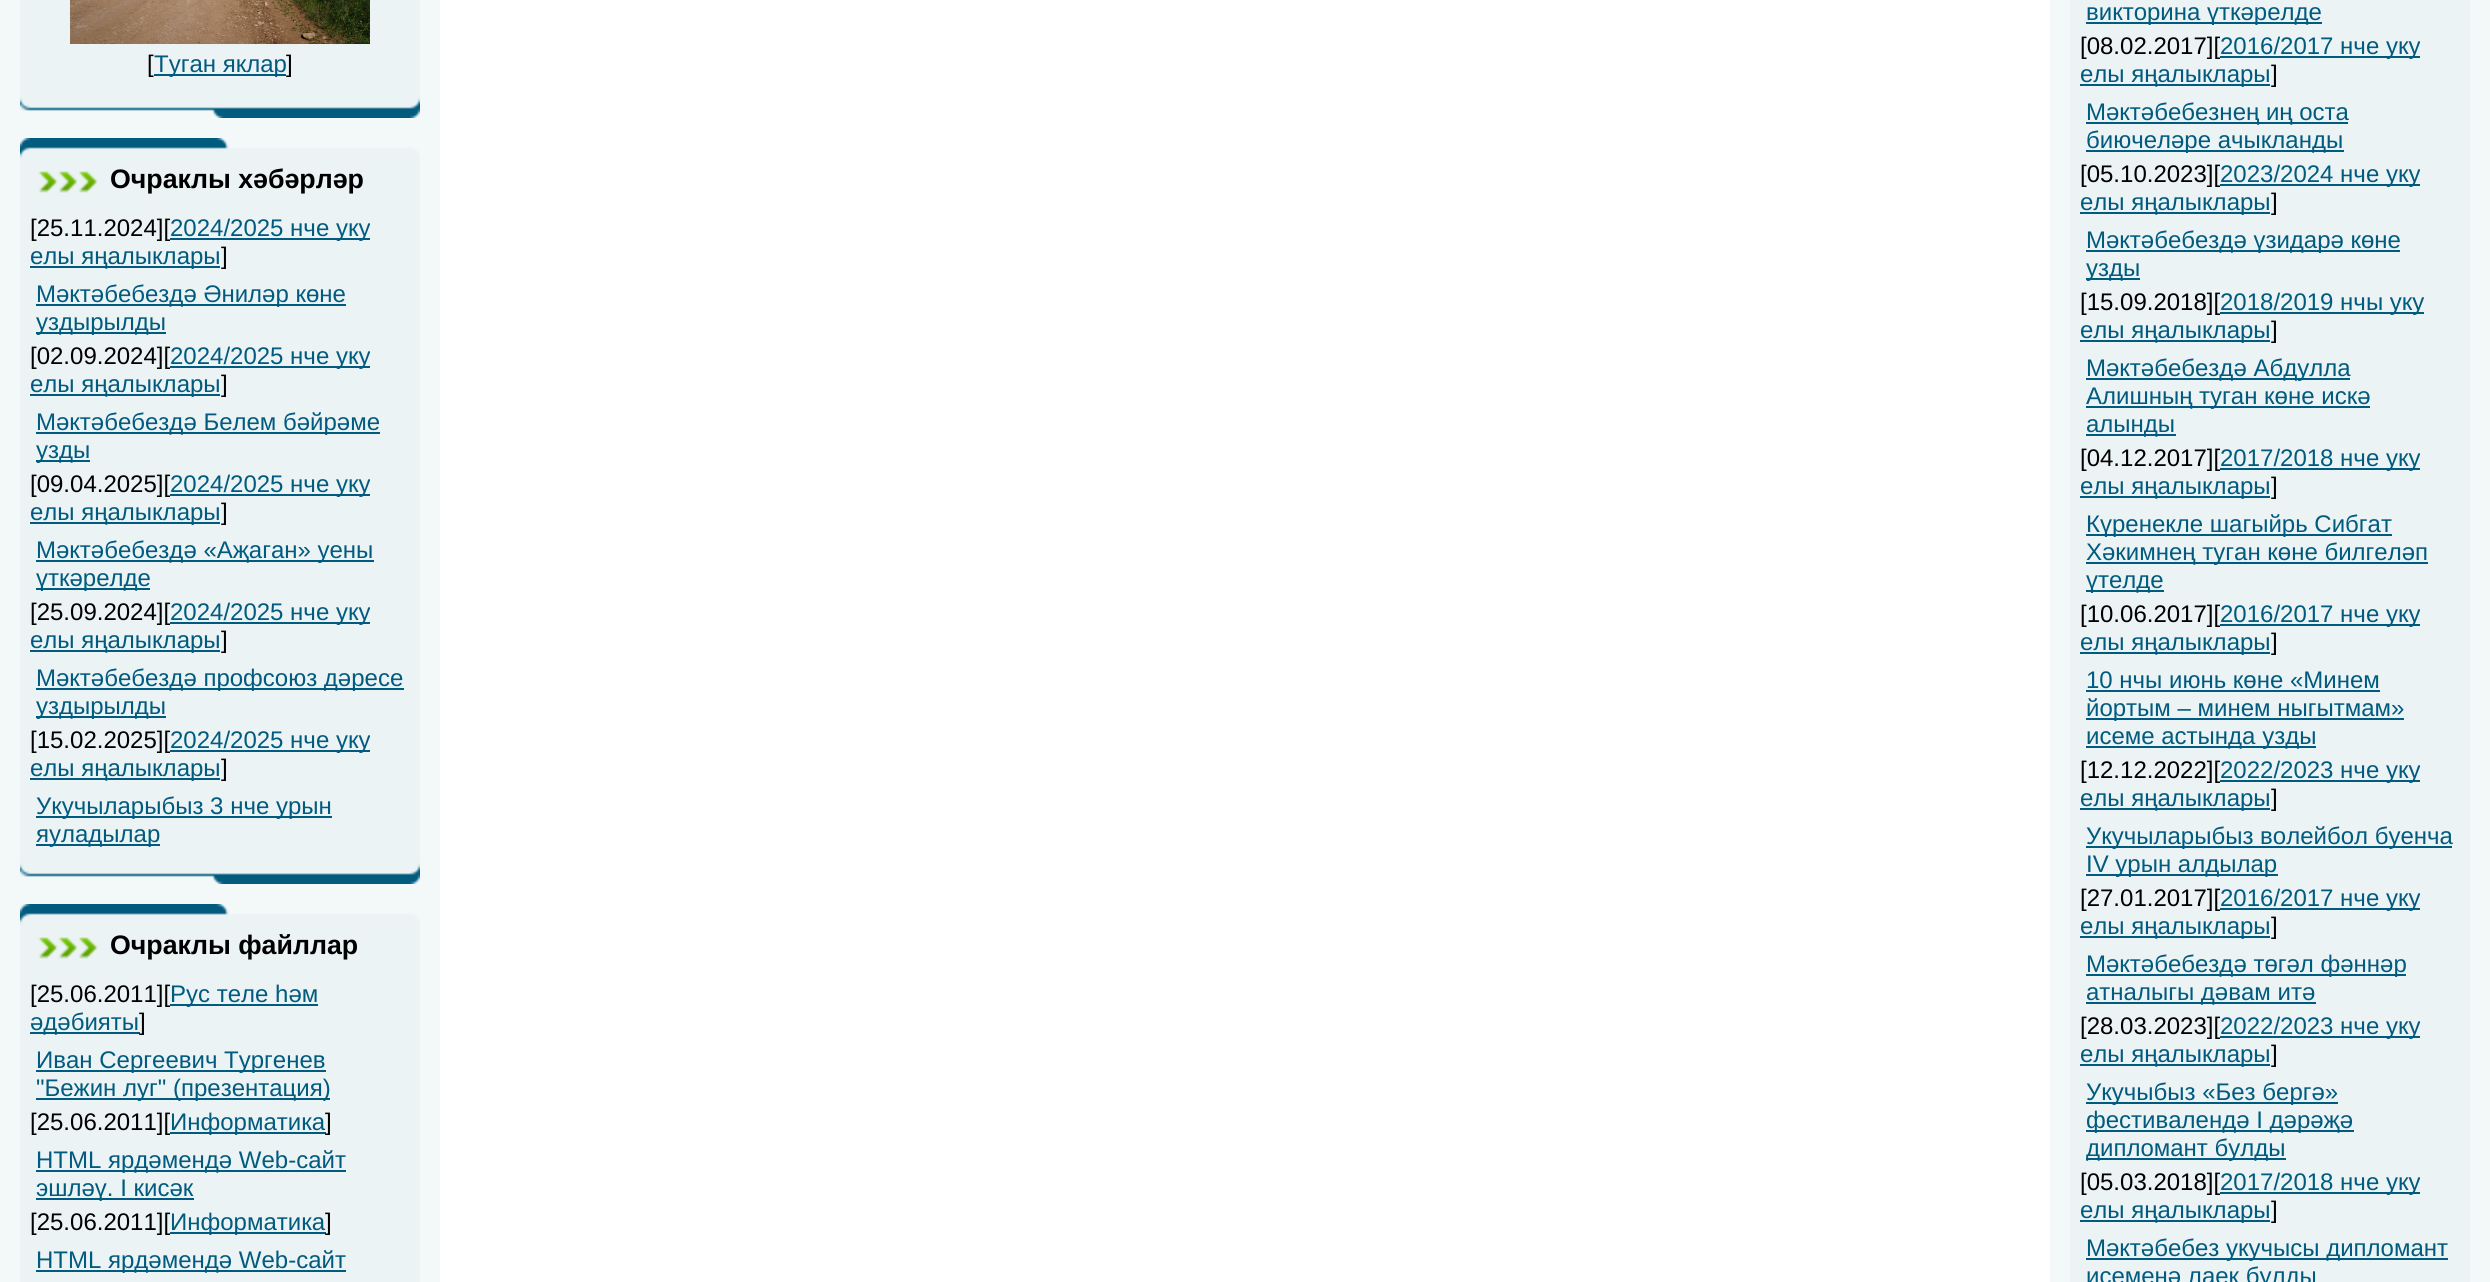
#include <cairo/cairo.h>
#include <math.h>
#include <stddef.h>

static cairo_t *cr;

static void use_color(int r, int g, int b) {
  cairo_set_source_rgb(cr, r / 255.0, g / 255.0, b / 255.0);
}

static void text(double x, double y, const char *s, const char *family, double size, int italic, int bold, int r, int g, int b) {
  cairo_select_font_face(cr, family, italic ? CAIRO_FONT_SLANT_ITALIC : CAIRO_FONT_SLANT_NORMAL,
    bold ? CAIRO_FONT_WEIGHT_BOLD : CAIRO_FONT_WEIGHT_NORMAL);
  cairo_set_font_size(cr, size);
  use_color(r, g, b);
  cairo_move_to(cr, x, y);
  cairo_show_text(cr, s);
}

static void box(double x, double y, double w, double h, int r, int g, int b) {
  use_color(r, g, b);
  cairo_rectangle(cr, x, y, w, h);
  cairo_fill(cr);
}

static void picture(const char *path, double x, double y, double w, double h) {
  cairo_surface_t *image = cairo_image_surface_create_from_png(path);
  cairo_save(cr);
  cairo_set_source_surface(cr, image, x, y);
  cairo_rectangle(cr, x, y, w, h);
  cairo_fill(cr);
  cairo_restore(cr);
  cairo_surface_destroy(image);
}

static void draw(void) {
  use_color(243, 248, 249);
  cairo_paint(cr);
  picture("img_01.png", 20, 0, 400, 118);
  picture("img_02.png", 70, 0, 300, 44);
  box(154, 74, 132, 2, 0, 91, 127);
  picture("img_03.png", 20, 138, 400, 76);
  picture("img_04.png", 20, 214, 400, 670);
  box(170, 238, 200, 2, 0, 91, 127);
  box(30, 266, 190, 2, 0, 91, 127);
  box(36, 304, 310, 2, 0, 91, 127);
  box(36, 332, 130, 2, 0, 91, 127);
  box(170, 366, 200, 2, 0, 91, 127);
  box(30, 394, 190, 2, 0, 91, 127);
  box(36, 432, 344, 2, 0, 91, 127);
  box(36, 460, 54, 2, 0, 91, 127);
  box(170, 494, 200, 2, 0, 91, 127);
  box(30, 522, 190, 2, 0, 91, 127);
  box(36, 560, 338, 2, 0, 91, 127);
  box(36, 588, 114, 2, 0, 91, 127);
  box(170, 622, 200, 2, 0, 91, 127);
  box(30, 650, 190, 2, 0, 91, 127);
  box(36, 688, 368, 2, 0, 91, 127);
  box(36, 716, 130, 2, 0, 91, 127);
  box(170, 750, 200, 2, 0, 91, 127);
  box(30, 778, 190, 2, 0, 91, 127);
  box(36, 816, 296, 2, 0, 91, 127);
  box(36, 844, 124, 2, 0, 91, 127);
  picture("img_03.png", 20, 904, 400, 76);
  box(20, 980, 400, 302, 236, 243, 245);
  box(170, 1004, 148, 2, 0, 91, 127);
  box(30, 1032, 110, 2, 0, 91, 127);
  box(36, 1070, 290, 2, 0, 91, 127);
  box(36, 1098, 294, 2, 0, 91, 127);
  box(170, 1132, 156, 2, 0, 91, 127);
  box(36, 1170, 310, 2, 0, 91, 127);
  box(36, 1198, 158, 2, 0, 91, 127);
  box(170, 1232, 156, 2, 0, 91, 127);
  box(36, 1270, 310, 2, 0, 91, 127);
  box(440, 0, 1610, 1282, 255, 255, 255);
  box(2070, 0, 400, 1282, 236, 243, 245);
  box(2086, 22, 236, 2, 0, 91, 127);
  box(2220, 56, 200, 2, 0, 91, 127);
  box(2080, 84, 190, 2, 0, 91, 127);
  box(2086, 122, 262, 2, 0, 91, 127);
  box(2086, 150, 258, 2, 0, 91, 127);
  box(2220, 184, 200, 2, 0, 91, 127);
  box(2080, 212, 190, 2, 0, 91, 127);
  box(2086, 250, 314, 2, 0, 91, 127);
  box(2086, 278, 54, 2, 0, 91, 127);
  box(2220, 312, 204, 2, 0, 91, 127);
  box(2080, 340, 190, 2, 0, 91, 127);
  box(2086, 378, 264, 2, 0, 91, 127);
  box(2086, 406, 284, 2, 0, 91, 127);
  box(2086, 434, 90, 2, 0, 91, 127);
  box(2220, 468, 200, 2, 0, 91, 127);
  box(2080, 496, 190, 2, 0, 91, 127);
  box(2086, 534, 306, 2, 0, 91, 127);
  box(2086, 562, 342, 2, 0, 91, 127);
  box(2086, 590, 78, 2, 0, 91, 127);
  box(2220, 624, 200, 2, 0, 91, 127);
  box(2080, 652, 190, 2, 0, 91, 127);
  box(2086, 690, 294, 2, 0, 91, 127);
  box(2086, 718, 318, 2, 0, 91, 127);
  box(2086, 746, 230, 2, 0, 91, 127);
  box(2220, 780, 200, 2, 0, 91, 127);
  box(2080, 808, 190, 2, 0, 91, 127);
  box(2086, 846, 366, 2, 0, 91, 127);
  box(2086, 874, 192, 2, 0, 91, 127);
  box(2220, 908, 200, 2, 0, 91, 127);
  box(2080, 936, 190, 2, 0, 91, 127);
  box(2086, 974, 320, 2, 0, 91, 127);
  box(2086, 1002, 230, 2, 0, 91, 127);
  box(2220, 1036, 200, 2, 0, 91, 127);
  box(2080, 1064, 190, 2, 0, 91, 127);
  box(2086, 1102, 252, 2, 0, 91, 127);
  box(2086, 1130, 268, 2, 0, 91, 127);
  box(2086, 1158, 200, 2, 0, 91, 127);
  box(2220, 1192, 200, 2, 0, 91, 127);
  box(2080, 1220, 190, 2, 0, 91, 127);
  box(2086, 1258, 362, 2, 0, 91, 127);
  text(147, 72, "[", "Liberation Sans", 24, 0, 0, 0, 0, 0);
  text(154, 72, "Туган яклар", "Liberation Sans", 24, 0, 0, 0, 91, 127);
  text(286, 72, "]", "Liberation Sans", 24, 0, 0, 0, 0, 0);
  text(110, 188, "Очраклы хәбәрләр", "Liberation Sans", 26.75, 0, 1, 0, 0, 0);
  text(30, 236, "[25.11.2024][", "Liberation Sans", 24, 0, 0, 0, 0, 0);
  text(170, 236, "2024/2025 нче уку", "Liberation Sans", 24, 0, 0, 0, 91, 127);
  text(30, 264, "елы яңалыклары", "Liberation Sans", 24, 0, 0, 0, 91, 127);
  text(221, 264, "]", "Liberation Sans", 24, 0, 0, 0, 0, 0);
  text(36, 302, "Мәктәбебездә Әниләр көне", "Liberation Sans", 24, 0, 0, 0, 91, 127);
  text(36, 330, "уздырылды", "Liberation Sans", 24, 0, 0, 0, 91, 127);
  text(30, 364, "[02.09.2024][", "Liberation Sans", 24, 0, 0, 0, 0, 0);
  text(170, 364, "2024/2025 нче уку", "Liberation Sans", 24, 0, 0, 0, 91, 127);
  text(30, 392, "елы яңалыклары", "Liberation Sans", 24, 0, 0, 0, 91, 127);
  text(221, 392, "]", "Liberation Sans", 24, 0, 0, 0, 0, 0);
  text(36, 430, "Мәктәбебездә Белем бәйрәме", "Liberation Sans", 24, 0, 0, 0, 91, 127);
  text(36, 458, "узды", "Liberation Sans", 24, 0, 0, 0, 91, 127);
  text(30, 492, "[09.04.2025][", "Liberation Sans", 24, 0, 0, 0, 0, 0);
  text(170, 492, "2024/2025 нче уку", "Liberation Sans", 24, 0, 0, 0, 91, 127);
  text(30, 520, "елы яңалыклары", "Liberation Sans", 24, 0, 0, 0, 91, 127);
  text(221, 520, "]", "Liberation Sans", 24, 0, 0, 0, 0, 0);
  text(36, 558, "Мәктәбебездә «Аҗаган» уены", "Liberation Sans", 24, 0, 0, 0, 91, 127);
  text(36, 586, "үткәрелде", "Liberation Sans", 24, 0, 0, 0, 91, 127);
  text(30, 620, "[25.09.2024][", "Liberation Sans", 24, 0, 0, 0, 0, 0);
  text(170, 620, "2024/2025 нче уку", "Liberation Sans", 24, 0, 0, 0, 91, 127);
  text(30, 648, "елы яңалыклары", "Liberation Sans", 24, 0, 0, 0, 91, 127);
  text(221, 648, "]", "Liberation Sans", 24, 0, 0, 0, 0, 0);
  text(36, 686, "Мәктәбебездә профсоюз дәресе", "Liberation Sans", 24, 0, 0, 0, 91, 127);
  text(36, 714, "уздырылды", "Liberation Sans", 24, 0, 0, 0, 91, 127);
  text(30, 748, "[15.02.2025][", "Liberation Sans", 24, 0, 0, 0, 0, 0);
  text(170, 748, "2024/2025 нче уку", "Liberation Sans", 24, 0, 0, 0, 91, 127);
  text(30, 776, "елы яңалыклары", "Liberation Sans", 24, 0, 0, 0, 91, 127);
  text(221, 776, "]", "Liberation Sans", 24, 0, 0, 0, 0, 0);
  text(36, 814, "Укучыларыбыз 3 нче урын", "Liberation Sans", 24, 0, 0, 0, 91, 127);
  text(36, 842, "яуладылар", "Liberation Sans", 24, 0, 0, 0, 91, 127);
  text(110, 954, "Очраклы файллар", "Liberation Sans", 26.75, 0, 1, 0, 0, 0);
  text(30, 1002, "[25.06.2011][", "Liberation Sans", 24, 0, 0, 0, 0, 0);
  text(170, 1002, "Рус теле һәм", "Liberation Sans", 24, 0, 0, 0, 91, 127);
  text(30, 1030, "әдәбияты", "Liberation Sans", 24, 0, 0, 0, 91, 127);
  text(139, 1030, "]", "Liberation Sans", 24, 0, 0, 0, 0, 0);
  text(36, 1068, "Иван Сергеевич Тургенев", "Liberation Sans", 24, 0, 0, 0, 91, 127);
  text(36, 1096, "\"Бежин луг\" (презентация)", "Liberation Sans", 24, 0, 0, 0, 91, 127);
  text(30, 1130, "[25.06.2011][", "Liberation Sans", 24, 0, 0, 0, 0, 0);
  text(170, 1130, "Информатика", "Liberation Sans", 24, 0, 0, 0, 91, 127);
  text(325, 1130, "]", "Liberation Sans", 24, 0, 0, 0, 0, 0);
  text(36, 1168, "HTML ярдәмендә Web-сайт", "Liberation Sans", 24, 0, 0, 0, 91, 127);
  text(36, 1196, "эшләү. I кисәк", "Liberation Sans", 24, 0, 0, 0, 91, 127);
  text(30, 1230, "[25.06.2011][", "Liberation Sans", 24, 0, 0, 0, 0, 0);
  text(170, 1230, "Информатика", "Liberation Sans", 24, 0, 0, 0, 91, 127);
  text(325, 1230, "]", "Liberation Sans", 24, 0, 0, 0, 0, 0);
  text(36, 1268, "HTML ярдәмендә Web-сайт", "Liberation Sans", 24, 0, 0, 0, 91, 127);
  text(2086, 20, "викторина үткәрелде", "Liberation Sans", 24, 0, 0, 0, 91, 127);
  text(2080, 54, "[08.02.2017][", "Liberation Sans", 24, 0, 0, 0, 0, 0);
  text(2220, 54, "2016/2017 нче уку", "Liberation Sans", 24, 0, 0, 0, 91, 127);
  text(2080, 82, "елы яңалыклары", "Liberation Sans", 24, 0, 0, 0, 91, 127);
  text(2271, 82, "]", "Liberation Sans", 24, 0, 0, 0, 0, 0);
  text(2086, 120, "Мәктәбебезнең иң оста", "Liberation Sans", 24, 0, 0, 0, 91, 127);
  text(2086, 148, "биючеләре ачыкланды", "Liberation Sans", 24, 0, 0, 0, 91, 127);
  text(2080, 182, "[05.10.2023][", "Liberation Sans", 24, 0, 0, 0, 0, 0);
  text(2220, 182, "2023/2024 нче уку", "Liberation Sans", 24, 0, 0, 0, 91, 127);
  text(2080, 210, "елы яңалыклары", "Liberation Sans", 24, 0, 0, 0, 91, 127);
  text(2271, 210, "]", "Liberation Sans", 24, 0, 0, 0, 0, 0);
  text(2086, 248, "Мәктәбебездә үзидарә көне", "Liberation Sans", 24, 0, 0, 0, 91, 127);
  text(2086, 276, "узды", "Liberation Sans", 24, 0, 0, 0, 91, 127);
  text(2080, 310, "[15.09.2018][", "Liberation Sans", 24, 0, 0, 0, 0, 0);
  text(2220, 310, "2018/2019 нчы уку", "Liberation Sans", 24, 0, 0, 0, 91, 127);
  text(2080, 338, "елы яңалыклары", "Liberation Sans", 24, 0, 0, 0, 91, 127);
  text(2271, 338, "]", "Liberation Sans", 24, 0, 0, 0, 0, 0);
  text(2086, 376, "Мәктәбебездә Абдулла", "Liberation Sans", 24, 0, 0, 0, 91, 127);
  text(2086, 404, "Алишның туган көне искә", "Liberation Sans", 24, 0, 0, 0, 91, 127);
  text(2086, 432, "алынды", "Liberation Sans", 24, 0, 0, 0, 91, 127);
  text(2080, 466, "[04.12.2017][", "Liberation Sans", 24, 0, 0, 0, 0, 0);
  text(2220, 466, "2017/2018 нче уку", "Liberation Sans", 24, 0, 0, 0, 91, 127);
  text(2080, 494, "елы яңалыклары", "Liberation Sans", 24, 0, 0, 0, 91, 127);
  text(2271, 494, "]", "Liberation Sans", 24, 0, 0, 0, 0, 0);
  text(2086, 532, "Күренекле шагыйрь Сибгат", "Liberation Sans", 24, 0, 0, 0, 91, 127);
  text(2086, 560, "Хәкимнең туган көне билгеләп", "Liberation Sans", 24, 0, 0, 0, 91, 127);
  text(2086, 588, "үтелде", "Liberation Sans", 24, 0, 0, 0, 91, 127);
  text(2080, 622, "[10.06.2017][", "Liberation Sans", 24, 0, 0, 0, 0, 0);
  text(2220, 622, "2016/2017 нче уку", "Liberation Sans", 24, 0, 0, 0, 91, 127);
  text(2080, 650, "елы яңалыклары", "Liberation Sans", 24, 0, 0, 0, 91, 127);
  text(2271, 650, "]", "Liberation Sans", 24, 0, 0, 0, 0, 0);
  text(2086, 688, "10 нчы июнь көне «Минем", "Liberation Sans", 24, 0, 0, 0, 91, 127);
  text(2086, 716, "йортым – минем ныгытмам»", "Liberation Sans", 24, 0, 0, 0, 91, 127);
  text(2086, 744, "исеме астында узды", "Liberation Sans", 24, 0, 0, 0, 91, 127);
  text(2080, 778, "[12.12.2022][", "Liberation Sans", 24, 0, 0, 0, 0, 0);
  text(2220, 778, "2022/2023 нче уку", "Liberation Sans", 24, 0, 0, 0, 91, 127);
  text(2080, 806, "елы яңалыклары", "Liberation Sans", 24, 0, 0, 0, 91, 127);
  text(2271, 806, "]", "Liberation Sans", 24, 0, 0, 0, 0, 0);
  text(2086, 844, "Укучыларыбыз волейбол буенча", "Liberation Sans", 24, 0, 0, 0, 91, 127);
  text(2086, 872, "IV урын алдылар", "Liberation Sans", 24, 0, 0, 0, 91, 127);
  text(2080, 906, "[27.01.2017][", "Liberation Sans", 24, 0, 0, 0, 0, 0);
  text(2220, 906, "2016/2017 нче уку", "Liberation Sans", 24, 0, 0, 0, 91, 127);
  text(2080, 934, "елы яңалыклары", "Liberation Sans", 24, 0, 0, 0, 91, 127);
  text(2271, 934, "]", "Liberation Sans", 24, 0, 0, 0, 0, 0);
  text(2086, 972, "Мәктәбебездә төгәл фәннәр", "Liberation Sans", 24, 0, 0, 0, 91, 127);
  text(2086, 1000, "атналыгы дәвам итә", "Liberation Sans", 24, 0, 0, 0, 91, 127);
  text(2080, 1034, "[28.03.2023][", "Liberation Sans", 24, 0, 0, 0, 0, 0);
  text(2220, 1034, "2022/2023 нче уку", "Liberation Sans", 24, 0, 0, 0, 91, 127);
  text(2080, 1062, "елы яңалыклары", "Liberation Sans", 24, 0, 0, 0, 91, 127);
  text(2271, 1062, "]", "Liberation Sans", 24, 0, 0, 0, 0, 0);
  text(2086, 1100, "Укучыбыз «Без бергә»", "Liberation Sans", 24, 0, 0, 0, 91, 127);
  text(2086, 1128, "фестивалендә I дәрәҗә", "Liberation Sans", 24, 0, 0, 0, 91, 127);
  text(2086, 1156, "дипломант булды", "Liberation Sans", 24, 0, 0, 0, 91, 127);
  text(2080, 1190, "[05.03.2018][", "Liberation Sans", 24, 0, 0, 0, 0, 0);
  text(2220, 1190, "2017/2018 нче уку", "Liberation Sans", 24, 0, 0, 0, 91, 127);
  text(2080, 1218, "елы яңалыклары", "Liberation Sans", 24, 0, 0, 0, 91, 127);
  text(2271, 1218, "]", "Liberation Sans", 24, 0, 0, 0, 0, 0);
  text(2086, 1256, "Мәктәбебез укучысы дипломант", "Liberation Sans", 24, 0, 0, 0, 91, 127);
  text(2086, 1284, "исеменә лаек булды", "Liberation Sans", 24, 0, 0, 0, 91, 127);
}

int main(void) {
  cairo_surface_t *surface = cairo_image_surface_create(CAIRO_FORMAT_RGB24, 2490, 1282);
  cr = cairo_create(surface);
  cairo_font_options_t *options = cairo_font_options_create();
  cairo_font_options_set_hint_metrics(options, CAIRO_HINT_METRICS_OFF);
  cairo_font_options_set_hint_style(options, CAIRO_HINT_STYLE_NONE);
  cairo_set_font_options(cr, options);
  cairo_set_miter_limit(cr, 4);
  draw();
  cairo_surface_write_to_png(surface, "out.png");
  cairo_font_options_destroy(options);
  cairo_destroy(cr);
  cairo_surface_destroy(surface);
  return 0;
}
